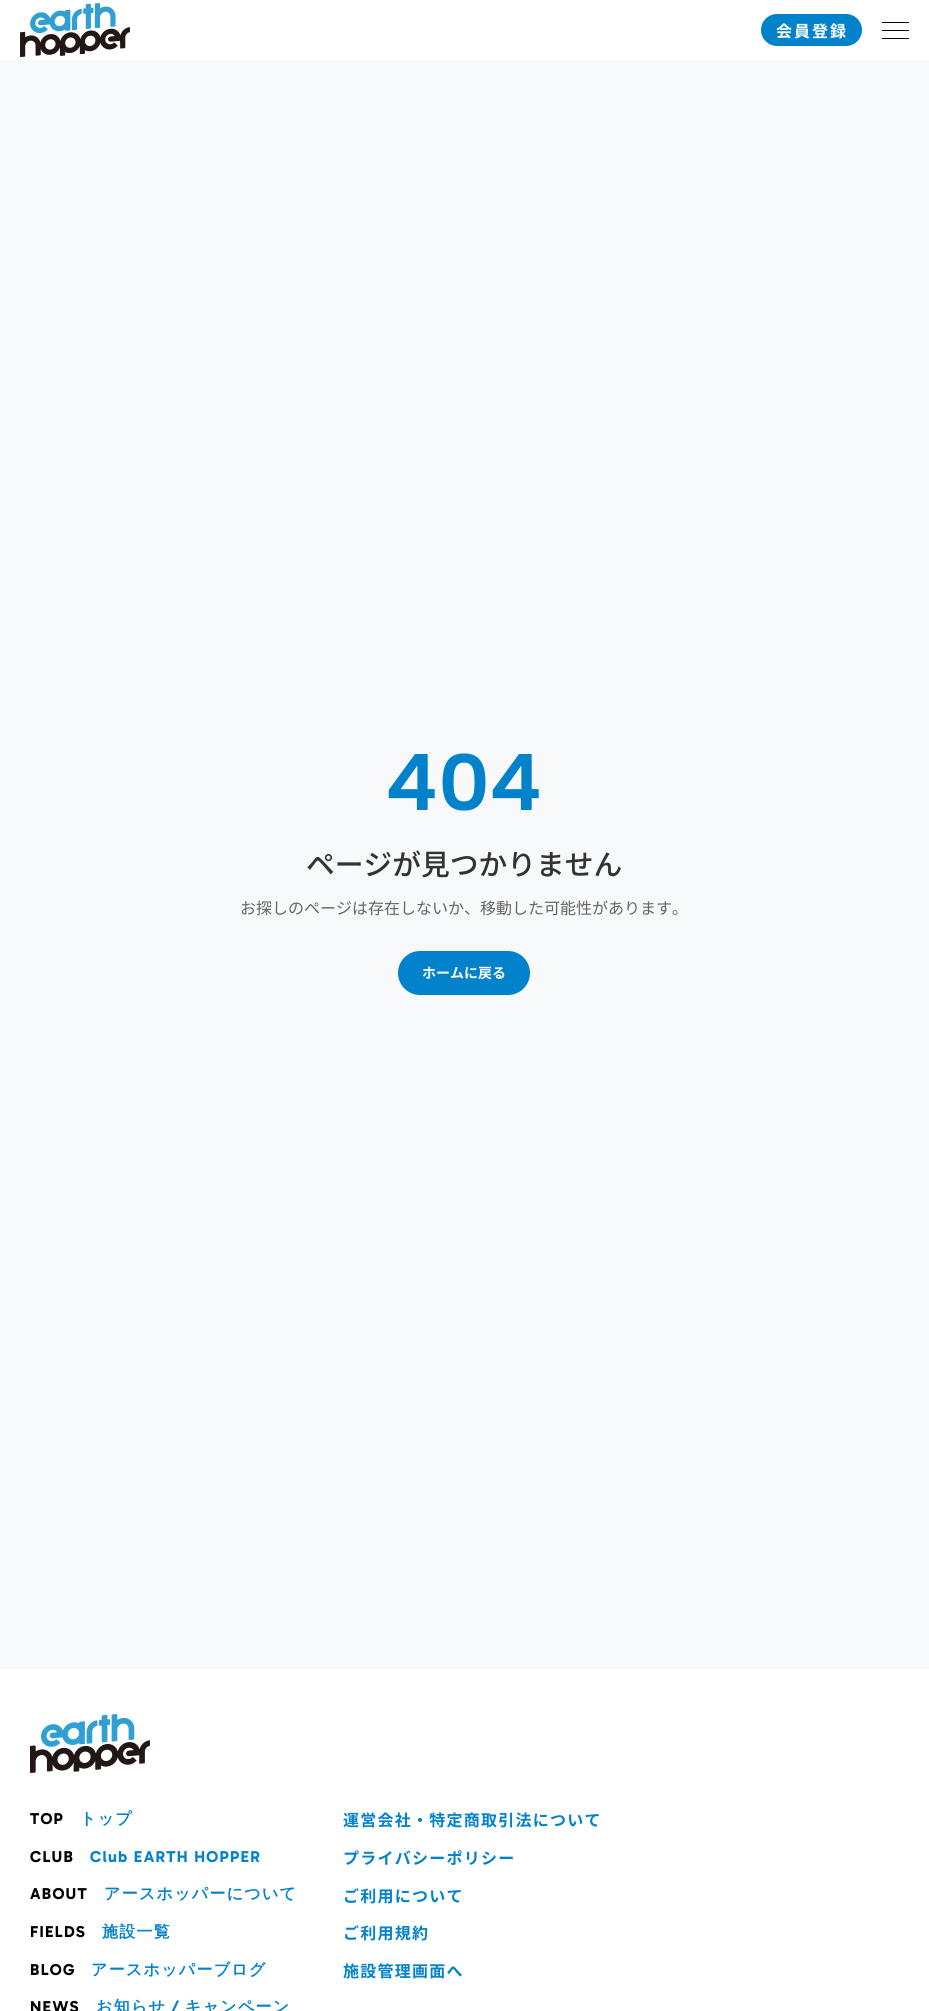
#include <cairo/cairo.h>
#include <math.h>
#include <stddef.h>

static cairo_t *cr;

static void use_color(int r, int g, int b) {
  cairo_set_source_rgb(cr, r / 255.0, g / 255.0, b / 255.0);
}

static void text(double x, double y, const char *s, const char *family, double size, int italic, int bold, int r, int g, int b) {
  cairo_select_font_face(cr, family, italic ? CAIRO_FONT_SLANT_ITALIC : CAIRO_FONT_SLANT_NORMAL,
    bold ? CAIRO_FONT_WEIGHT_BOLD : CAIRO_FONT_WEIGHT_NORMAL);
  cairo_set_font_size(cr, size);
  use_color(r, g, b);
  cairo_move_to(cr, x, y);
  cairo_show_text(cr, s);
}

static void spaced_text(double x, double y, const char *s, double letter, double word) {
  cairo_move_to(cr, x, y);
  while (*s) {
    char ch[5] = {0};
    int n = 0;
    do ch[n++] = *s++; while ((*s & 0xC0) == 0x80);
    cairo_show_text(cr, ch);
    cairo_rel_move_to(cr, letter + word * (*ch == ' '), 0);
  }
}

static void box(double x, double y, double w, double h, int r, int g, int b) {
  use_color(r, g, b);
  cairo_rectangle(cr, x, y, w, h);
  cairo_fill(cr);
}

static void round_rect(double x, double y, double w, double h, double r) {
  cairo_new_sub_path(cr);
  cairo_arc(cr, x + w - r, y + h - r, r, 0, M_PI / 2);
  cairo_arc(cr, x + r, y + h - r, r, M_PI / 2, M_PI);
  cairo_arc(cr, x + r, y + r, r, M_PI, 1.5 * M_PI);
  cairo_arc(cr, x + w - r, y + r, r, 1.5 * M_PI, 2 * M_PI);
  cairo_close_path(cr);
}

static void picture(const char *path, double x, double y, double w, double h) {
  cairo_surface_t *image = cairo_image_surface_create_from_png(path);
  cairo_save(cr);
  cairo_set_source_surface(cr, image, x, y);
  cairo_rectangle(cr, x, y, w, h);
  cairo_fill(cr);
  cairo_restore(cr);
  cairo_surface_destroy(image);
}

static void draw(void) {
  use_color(255, 255, 255);
  cairo_paint(cr);
  picture("img_01.png", 20, 3, 110, 54);
  use_color(3, 130, 204);
  round_rect(761, 14, 101, 32, 16);
  cairo_fill(cr);
  box(882, 30, 27, 1, 0, 0, 0);
  box(882, 22, 27, 1, 0, 0, 0);
  box(882, 38, 27, 1, 0, 0, 0);
  box(0, 60, 929, 1609, 248, 249, 250);
  use_color(3, 130, 204);
  round_rect(398, 951, 132, 44, 22);
  cairo_fill(cr);
  picture("img_02.png", 30, 1714, 120, 59);
  cairo_select_font_face(cr, "Noto Sans JP", CAIRO_FONT_SLANT_NORMAL, CAIRO_FONT_WEIGHT_BOLD);
  cairo_set_font_size(cr, 16);
  use_color(255, 255, 255);
  spaced_text(776, 37, "会員登録", 2, 0);
  text(386, 810, "404", "Albert Sans", 80, 0, 1, 3, 130, 204);
  text(306, 875, "ページが見つかりません", "Noto Sans JP Medium", 28.75, 0, 0, 51, 51, 51);
  text(240, 914, "お探しのページは存在しないか、移動した可能性があります。", "Noto Sans JP", 16, 0, 0, 102, 102, 102);
  text(422, 978, "ホームに戻る", "Noto Sans JP", 14, 0, 1, 255, 255, 255);
  cairo_select_font_face(cr, "Gabarito", CAIRO_FONT_SLANT_NORMAL, CAIRO_FONT_WEIGHT_BOLD);
  cairo_set_font_size(cr, 16);
  use_color(0, 0, 0);
  spaced_text(30, 1824, "TOP", 1.25, 0);
  cairo_select_font_face(cr, "WenQuanYi Zen Hei", CAIRO_FONT_SLANT_NORMAL, CAIRO_FONT_WEIGHT_BOLD);
  use_color(3, 130, 204);
  spaced_text(80, 1824, "トップ", 1.25, 0);
  cairo_select_font_face(cr, "Gabarito", CAIRO_FONT_SLANT_NORMAL, CAIRO_FONT_WEIGHT_BOLD);
  use_color(0, 0, 0);
  spaced_text(30, 1862, "CLUB", 1.25, 0);
  use_color(3, 130, 204);
  spaced_text(90, 1862, "Club EARTH HOPPER", 1.25, 0);
  use_color(0, 0, 0);
  spaced_text(30, 1899, "ABOUT", 1.25, 0);
  cairo_select_font_face(cr, "WenQuanYi Zen Hei", CAIRO_FONT_SLANT_NORMAL, CAIRO_FONT_WEIGHT_BOLD);
  use_color(3, 130, 204);
  spaced_text(104, 1899, "アースホッパーについて", 1.25, 0);
  cairo_select_font_face(cr, "Gabarito", CAIRO_FONT_SLANT_NORMAL, CAIRO_FONT_WEIGHT_BOLD);
  use_color(0, 0, 0);
  spaced_text(30, 1937, "FIELDS", 1.25, 0);
  cairo_select_font_face(cr, "WenQuanYi Zen Hei", CAIRO_FONT_SLANT_NORMAL, CAIRO_FONT_WEIGHT_BOLD);
  use_color(3, 130, 204);
  spaced_text(102, 1937, "施設一覧", 1.25, 0);
  cairo_select_font_face(cr, "Gabarito", CAIRO_FONT_SLANT_NORMAL, CAIRO_FONT_WEIGHT_BOLD);
  use_color(0, 0, 0);
  spaced_text(30, 1975, "BLOG", 1.25, 0);
  cairo_select_font_face(cr, "WenQuanYi Zen Hei", CAIRO_FONT_SLANT_NORMAL, CAIRO_FONT_WEIGHT_BOLD);
  use_color(3, 130, 204);
  spaced_text(91, 1975, "アースホッパーブログ", 1.25, 0);
  cairo_select_font_face(cr, "Gabarito", CAIRO_FONT_SLANT_NORMAL, CAIRO_FONT_WEIGHT_BOLD);
  use_color(0, 0, 0);
  spaced_text(30, 2012, "NEWS", 1.25, 0);
  cairo_select_font_face(cr, "WenQuanYi Zen Hei", CAIRO_FONT_SLANT_NORMAL, CAIRO_FONT_WEIGHT_BOLD);
  use_color(3, 130, 204);
  spaced_text(96, 2012, "お知らせ", 1.25, 0);
  cairo_select_font_face(cr, "Gabarito", CAIRO_FONT_SLANT_NORMAL, CAIRO_FONT_WEIGHT_BOLD);
  spaced_text(171, 2012, "/", 1.25, 0);
  cairo_select_font_face(cr, "WenQuanYi Zen Hei", CAIRO_FONT_SLANT_NORMAL, CAIRO_FONT_WEIGHT_BOLD);
  spaced_text(185, 2012, "キャンペーン", 1.25, 0);
  cairo_select_font_face(cr, "Noto Sans JP", CAIRO_FONT_SLANT_NORMAL, CAIRO_FONT_WEIGHT_BOLD);
  spaced_text(343, 1826, "運営会社・特定商取引法について", 1.25, 0);
  spaced_text(343, 1864, "プライバシーポリシー", 1.25, 0);
  spaced_text(343, 1902, "ご利用について", 1.25, 0);
  spaced_text(343, 1939, "ご利用規約", 1.25, 0);
  spaced_text(343, 1977, "施設管理画面へ", 1.25, 0);
}

int main(void) {
  cairo_surface_t *surface = cairo_image_surface_create(CAIRO_FORMAT_RGB24, 929, 2011);
  cr = cairo_create(surface);
  cairo_font_options_t *options = cairo_font_options_create();
  cairo_font_options_set_hint_metrics(options, CAIRO_HINT_METRICS_OFF);
  cairo_font_options_set_hint_style(options, CAIRO_HINT_STYLE_NONE);
  cairo_set_font_options(cr, options);
  cairo_set_miter_limit(cr, 4);
  draw();
  cairo_surface_write_to_png(surface, "out.png");
  cairo_font_options_destroy(options);
  cairo_destroy(cr);
  cairo_surface_destroy(surface);
  return 0;
}
